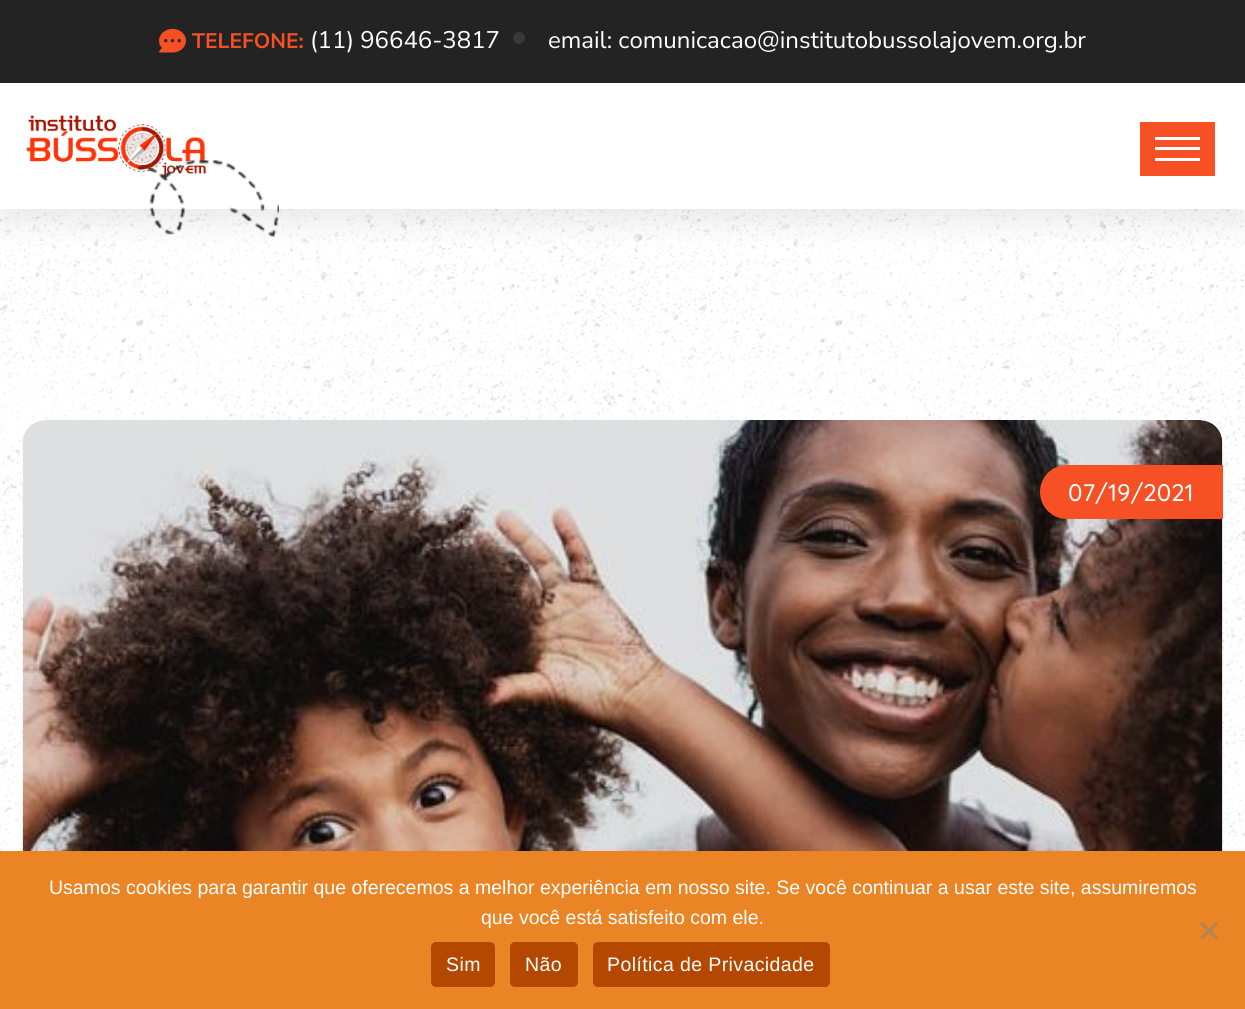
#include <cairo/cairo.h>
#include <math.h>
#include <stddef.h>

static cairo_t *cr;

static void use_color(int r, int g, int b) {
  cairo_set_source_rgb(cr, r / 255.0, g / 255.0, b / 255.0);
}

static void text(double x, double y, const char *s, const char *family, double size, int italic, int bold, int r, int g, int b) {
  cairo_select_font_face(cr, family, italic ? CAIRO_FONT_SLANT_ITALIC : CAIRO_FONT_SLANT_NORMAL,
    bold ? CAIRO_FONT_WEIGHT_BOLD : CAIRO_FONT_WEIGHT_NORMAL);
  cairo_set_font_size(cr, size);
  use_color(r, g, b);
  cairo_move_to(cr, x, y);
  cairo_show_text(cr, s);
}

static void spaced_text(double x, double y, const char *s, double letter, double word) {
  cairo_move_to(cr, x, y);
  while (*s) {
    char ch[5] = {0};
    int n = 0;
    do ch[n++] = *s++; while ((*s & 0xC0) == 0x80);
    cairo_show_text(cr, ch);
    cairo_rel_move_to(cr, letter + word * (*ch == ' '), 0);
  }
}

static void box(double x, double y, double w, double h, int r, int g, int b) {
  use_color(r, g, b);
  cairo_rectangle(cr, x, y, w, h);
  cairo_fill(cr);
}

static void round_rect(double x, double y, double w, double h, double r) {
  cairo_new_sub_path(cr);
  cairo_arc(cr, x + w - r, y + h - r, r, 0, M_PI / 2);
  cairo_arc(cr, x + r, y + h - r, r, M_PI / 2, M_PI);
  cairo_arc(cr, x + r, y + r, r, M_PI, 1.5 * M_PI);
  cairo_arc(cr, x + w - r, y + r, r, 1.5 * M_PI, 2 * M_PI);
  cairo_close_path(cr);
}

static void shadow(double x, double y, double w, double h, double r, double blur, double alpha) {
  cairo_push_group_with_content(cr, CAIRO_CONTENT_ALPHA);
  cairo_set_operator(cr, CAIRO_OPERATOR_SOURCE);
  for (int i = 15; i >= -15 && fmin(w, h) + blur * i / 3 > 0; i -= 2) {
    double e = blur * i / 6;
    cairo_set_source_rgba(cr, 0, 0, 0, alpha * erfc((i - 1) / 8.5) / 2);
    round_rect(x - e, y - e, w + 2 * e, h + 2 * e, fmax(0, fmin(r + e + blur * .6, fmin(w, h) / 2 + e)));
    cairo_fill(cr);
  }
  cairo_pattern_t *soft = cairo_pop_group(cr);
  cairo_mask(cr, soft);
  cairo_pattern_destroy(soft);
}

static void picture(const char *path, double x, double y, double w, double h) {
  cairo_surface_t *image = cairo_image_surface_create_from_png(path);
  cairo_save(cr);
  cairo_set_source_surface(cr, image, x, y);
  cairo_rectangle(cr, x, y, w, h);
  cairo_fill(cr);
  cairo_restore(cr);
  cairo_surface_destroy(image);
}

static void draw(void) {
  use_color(255, 255, 255);
  cairo_paint(cr);
  box(0, 0, 1245, 83, 35, 35, 35);
  picture("img_01.png", 159, 28, 27, 25);
  use_color(57, 57, 57);
  cairo_arc(cr, 519, 38, 6, 0, 2 * M_PI);
  cairo_fill(cr);
  picture("img_04.png", 0, 209, 1245, 642);
  cairo_save(cr);
  cairo_set_fill_rule(cr, CAIRO_FILL_RULE_EVEN_ODD);
  cairo_new_path(cr);
  cairo_move_to(cr, 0, 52);
  cairo_line_to(cr, 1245, 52);
  cairo_line_to(cr, 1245, 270);
  cairo_line_to(cr, 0, 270);
  cairo_close_path(cr);
  cairo_move_to(cr, 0, 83);
  cairo_line_to(cr, 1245, 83);
  cairo_line_to(cr, 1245, 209);
  cairo_line_to(cr, 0, 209);
  cairo_close_path(cr);
  cairo_clip(cr);
  use_color(0, 0, 0);
  shadow(0, 98, 1245, 126, 0, 15, 0.08);
  cairo_restore(cr);
  picture("img_02.png", 26, 115, 180, 62);
  picture("img_03.png", 136, 160, 143, 77);
  box(1140, 122, 75, 54, 246, 80, 36);
  box(1155, 137, 45, 3, 255, 255, 255);
  box(1155, 147, 45, 3, 255, 255, 255);
  box(1155, 158, 45, 3, 255, 255, 255);
  picture("img_05.png", 22, 420, 1201, 431);
  use_color(246, 80, 36);
  cairo_new_path(cr);
  cairo_move_to(cr, 1067, 465);
  cairo_line_to(cr, 1223, 465);
  cairo_line_to(cr, 1223, 519);
  cairo_line_to(cr, 1067, 519);
  cairo_curve_to(cr, 1052, 519, 1040, 507, 1040, 492);
  cairo_curve_to(cr, 1040, 477, 1052, 465, 1067, 465);
  cairo_close_path(cr);
  cairo_fill(cr);
  box(0, 851, 1245, 158, 234, 132, 37);
  use_color(181, 130, 83);
  cairo_new_path(cr);
  cairo_move_to(cr, 1216, 921.5);
  cairo_line_to(cr, 1218, 924);
  cairo_line_to(cr, 1202, 940);
  cairo_line_to(cr, 1200, 937.5);
  cairo_close_path(cr);
  cairo_fill(cr);
  cairo_new_path(cr);
  cairo_move_to(cr, 1200, 924);
  cairo_line_to(cr, 1202, 921.5);
  cairo_line_to(cr, 1218, 937.5);
  cairo_line_to(cr, 1216, 940);
  cairo_close_path(cr);
  cairo_fill(cr);
  use_color(181, 72, 0);
  round_rect(431, 942, 64, 45, 5);
  cairo_fill(cr);
  round_rect(510, 942, 68, 45, 5);
  cairo_fill(cr);
  round_rect(593, 942, 237, 45, 5);
  cairo_fill(cr);
  text(192, 48, "TELEFONE:", "Nunito Sans", 21, 0, 1, 246, 80, 36);
  text(310, 48, "(11) 96646-3817", "Nunito Sans", 24, 0, 0, 255, 255, 255);
  text(548, 48, "email: comunicacao@institutobussolajovem.org.br", "Nunito Sans", 24, 0, 0, 255, 255, 255);
  text(1068, 501, "07/19/2021", "Quicksand Medium", 24, 0, 0, 255, 255, 255);
  text(49, 894, "Usamos cookies para garantir que oferecemos a melhor experiência em nosso site. Se você continuar a usar este site, assumiremos", "Liberation Sans", 19.5, 0, 0, 255, 255, 255);
  text(481, 924, "que você está satisfeito com ele.", "Liberation Sans", 19.5, 0, 0, 255, 255, 255);
  spaced_text(446, 971, "Sim", 0.4, 0);
  spaced_text(525, 971, "Não", 0.4, 0);
  spaced_text(607, 971, "Política de Privacidade", 0.4, 0);
}

int main(void) {
  cairo_surface_t *surface = cairo_image_surface_create(CAIRO_FORMAT_RGB24, 1245, 1009);
  cr = cairo_create(surface);
  cairo_font_options_t *options = cairo_font_options_create();
  cairo_font_options_set_hint_metrics(options, CAIRO_HINT_METRICS_OFF);
  cairo_font_options_set_hint_style(options, CAIRO_HINT_STYLE_NONE);
  cairo_set_font_options(cr, options);
  cairo_set_miter_limit(cr, 4);
  draw();
  cairo_surface_write_to_png(surface, "out.png");
  cairo_font_options_destroy(options);
  cairo_destroy(cr);
  cairo_surface_destroy(surface);
  return 0;
}
